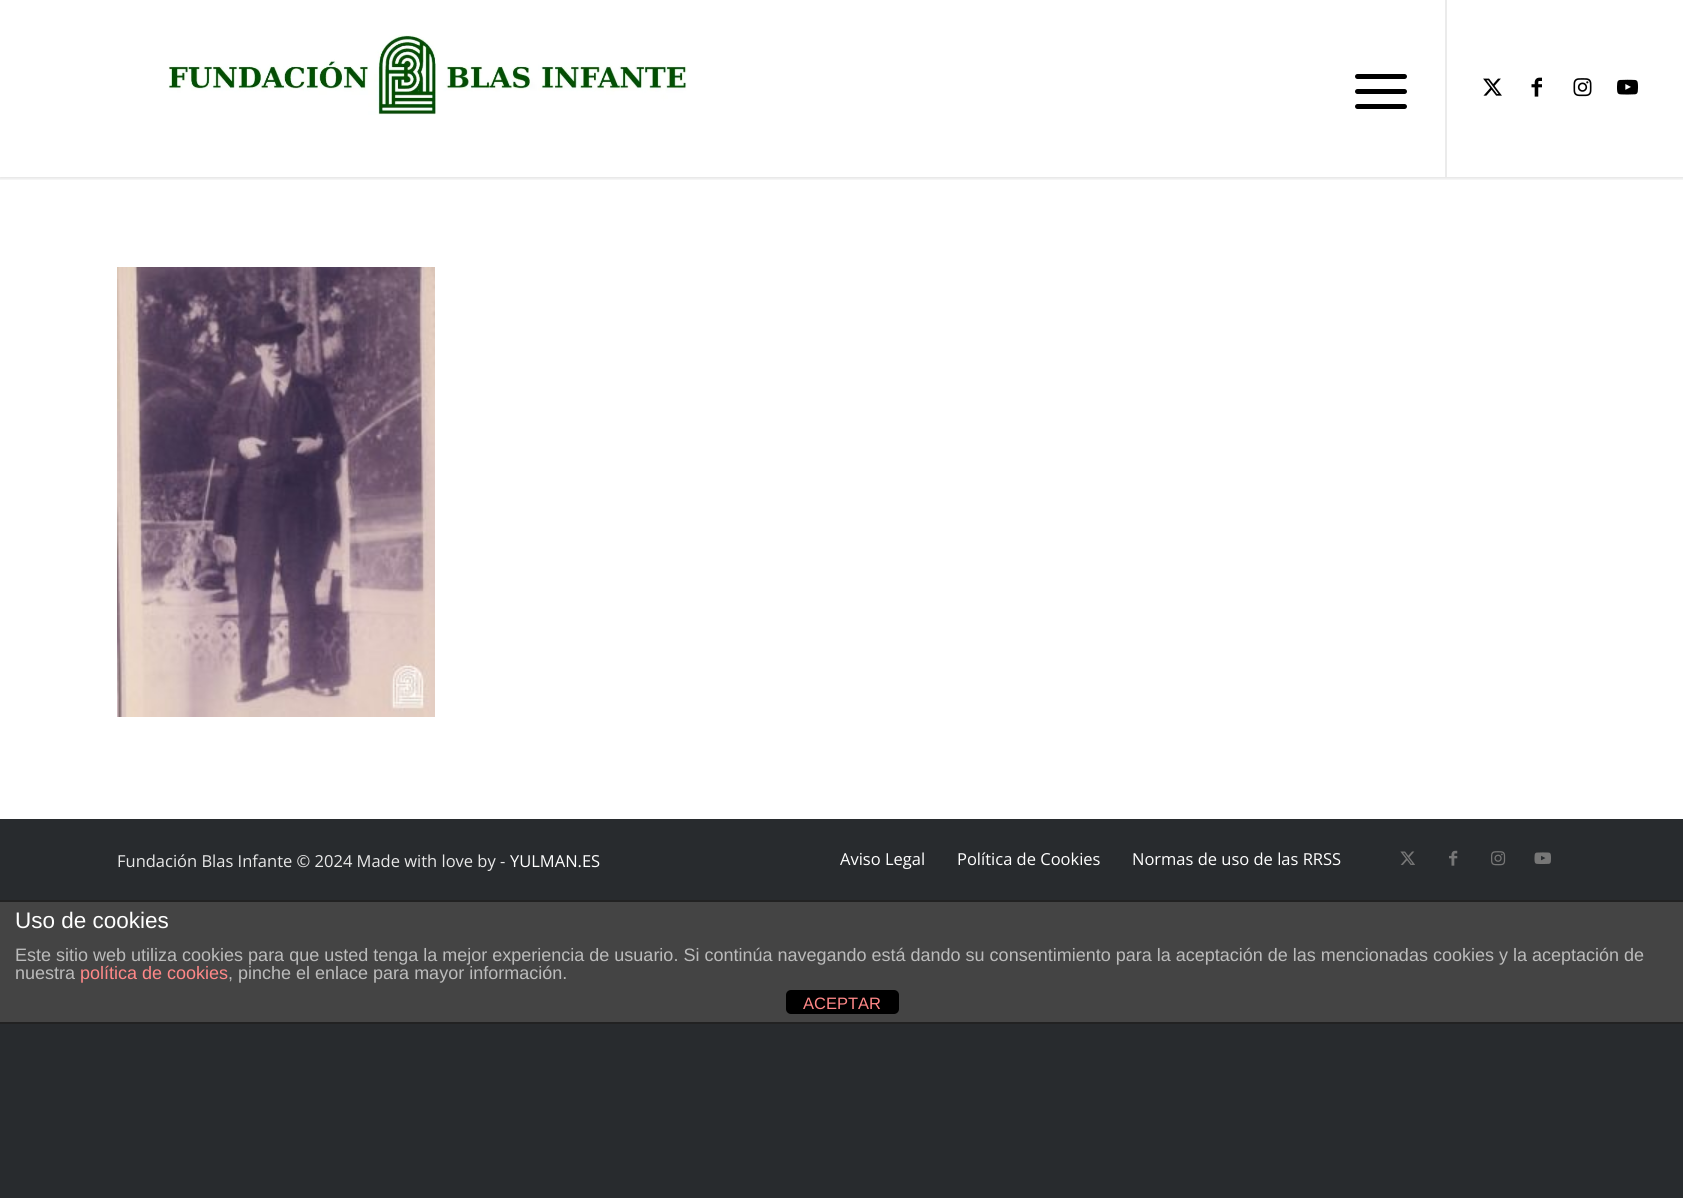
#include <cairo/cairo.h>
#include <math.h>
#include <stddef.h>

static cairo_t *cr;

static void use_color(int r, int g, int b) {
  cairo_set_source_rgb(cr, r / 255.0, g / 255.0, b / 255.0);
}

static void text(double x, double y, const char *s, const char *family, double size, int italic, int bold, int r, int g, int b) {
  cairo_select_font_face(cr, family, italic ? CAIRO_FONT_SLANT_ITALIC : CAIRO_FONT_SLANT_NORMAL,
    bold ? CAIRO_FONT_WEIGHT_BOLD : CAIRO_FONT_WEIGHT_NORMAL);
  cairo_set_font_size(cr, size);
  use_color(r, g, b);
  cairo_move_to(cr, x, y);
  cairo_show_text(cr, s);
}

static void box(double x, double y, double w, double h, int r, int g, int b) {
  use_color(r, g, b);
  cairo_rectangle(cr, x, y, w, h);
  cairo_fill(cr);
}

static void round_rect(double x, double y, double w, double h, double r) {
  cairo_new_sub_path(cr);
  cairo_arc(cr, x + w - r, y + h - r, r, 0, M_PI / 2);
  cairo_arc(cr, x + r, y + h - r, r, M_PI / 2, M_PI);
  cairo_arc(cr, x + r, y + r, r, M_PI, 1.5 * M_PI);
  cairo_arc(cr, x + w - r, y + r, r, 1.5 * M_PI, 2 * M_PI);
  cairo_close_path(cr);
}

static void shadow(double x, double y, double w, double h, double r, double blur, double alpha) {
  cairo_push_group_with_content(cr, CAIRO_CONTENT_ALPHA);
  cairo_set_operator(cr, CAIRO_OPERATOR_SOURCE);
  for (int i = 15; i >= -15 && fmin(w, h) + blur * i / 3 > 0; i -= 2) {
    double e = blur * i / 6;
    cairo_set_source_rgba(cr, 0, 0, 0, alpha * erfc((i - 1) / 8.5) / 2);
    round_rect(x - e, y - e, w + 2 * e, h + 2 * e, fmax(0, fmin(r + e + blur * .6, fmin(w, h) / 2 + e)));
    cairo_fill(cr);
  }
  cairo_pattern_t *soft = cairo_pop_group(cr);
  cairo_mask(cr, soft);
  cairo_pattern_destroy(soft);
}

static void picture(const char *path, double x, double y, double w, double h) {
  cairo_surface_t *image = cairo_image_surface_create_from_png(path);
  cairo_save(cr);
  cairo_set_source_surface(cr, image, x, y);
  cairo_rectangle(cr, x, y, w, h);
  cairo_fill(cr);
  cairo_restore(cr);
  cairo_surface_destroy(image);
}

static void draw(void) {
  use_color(40, 43, 46);
  cairo_paint(cr);
  box(0, 0, 1683, 819, 255, 255, 255);
  cairo_save(cr);
  cairo_rectangle(cr, 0, 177, 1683, 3);
  cairo_clip(cr);
  use_color(0, 0, 0);
  shadow(-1, -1, 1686, 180, 0, 1.5, 0.1);
  cairo_restore(cr);
  picture("img_01.png", 168, 35, 519, 80);
  box(1445, 0, 2, 177, 235, 235, 235);
  use_color(0, 0, 0);
  round_rect(1355, 89, 52, 5, 2.5);
  cairo_fill(cr);
  round_rect(1355, 74, 52, 5, 2.5);
  cairo_fill(cr);
  round_rect(1355, 104, 52, 5, 2.5);
  cairo_fill(cr);
  picture("img_02.png", 1483, 78, 19, 18);
  picture("img_03.png", 1531, 77, 11, 20);
  picture("img_04.png", 1573, 78, 19, 19);
  picture("img_05.png", 1617, 79, 21, 16);
  picture("img_06.png", 117, 267, 318, 450);
  picture("img_07.png", 1400, 851, 15, 14);
  picture("img_08.png", 1449, 850, 9, 16);
  picture("img_09.png", 1491, 851, 15, 15);
  picture("img_10.png", 1534, 852, 17, 12);
  box(0, 902, 1683, 120, 68, 68, 68);
  box(0, 900, 1683, 2, 34, 34, 34);
  box(0, 1022, 1683, 2, 34, 34, 34);
  use_color(0, 0, 0);
  round_rect(786, 990, 113, 24, 5);
  cairo_fill(cr);
  text(117, 867, "Fundación Blas Infante © 2024 Made with love by -", "Open Sans", 16.5, 0, 0, 232, 232, 232);
  text(510, 867, "YULMAN.ES", "Open Sans", 16.5, 0, 0, 255, 255, 255);
  text(840, 865, "Aviso Legal", "Open Sans", 16.5, 0, 0, 255, 255, 255);
  text(957, 865, "Política de Cookies", "Open Sans", 16.5, 0, 0, 255, 255, 255);
  text(1132, 865, "Normas de uso de las RRSS", "Open Sans", 16.5, 0, 0, 255, 255, 255);
  text(15, 928, "Uso de cookies", "Liberation Sans", 22.5, 0, 0, 255, 255, 255);
  text(15, 961, "Este sitio web utiliza cookies para que usted tenga la mejor experiencia de usuario. Si continúa navegando está dando su consentimiento para la aceptación de las mencionadas cookies y la aceptación de", "Liberation Sans", 18, 0, 0, 187, 187, 187);
  text(15, 979, "nuestra", "Liberation Sans", 18, 0, 0, 187, 187, 187);
  text(80, 979, "política de cookies", "Liberation Sans", 18, 0, 0, 255, 136, 136);
  text(228, 979, ", pinche el enlace para mayor información.", "Liberation Sans", 18, 0, 0, 187, 187, 187);
  text(803, 1009, "ACEPTAR", "Liberation Sans", 16.5, 0, 0, 255, 136, 136);
}

int main(void) {
  cairo_surface_t *surface = cairo_image_surface_create(CAIRO_FORMAT_RGB24, 1683, 1198);
  cr = cairo_create(surface);
  cairo_font_options_t *options = cairo_font_options_create();
  cairo_font_options_set_hint_metrics(options, CAIRO_HINT_METRICS_OFF);
  cairo_font_options_set_hint_style(options, CAIRO_HINT_STYLE_NONE);
  cairo_set_font_options(cr, options);
  cairo_set_miter_limit(cr, 4);
  draw();
  cairo_surface_write_to_png(surface, "out.png");
  cairo_font_options_destroy(options);
  cairo_destroy(cr);
  cairo_surface_destroy(surface);
  return 0;
}
